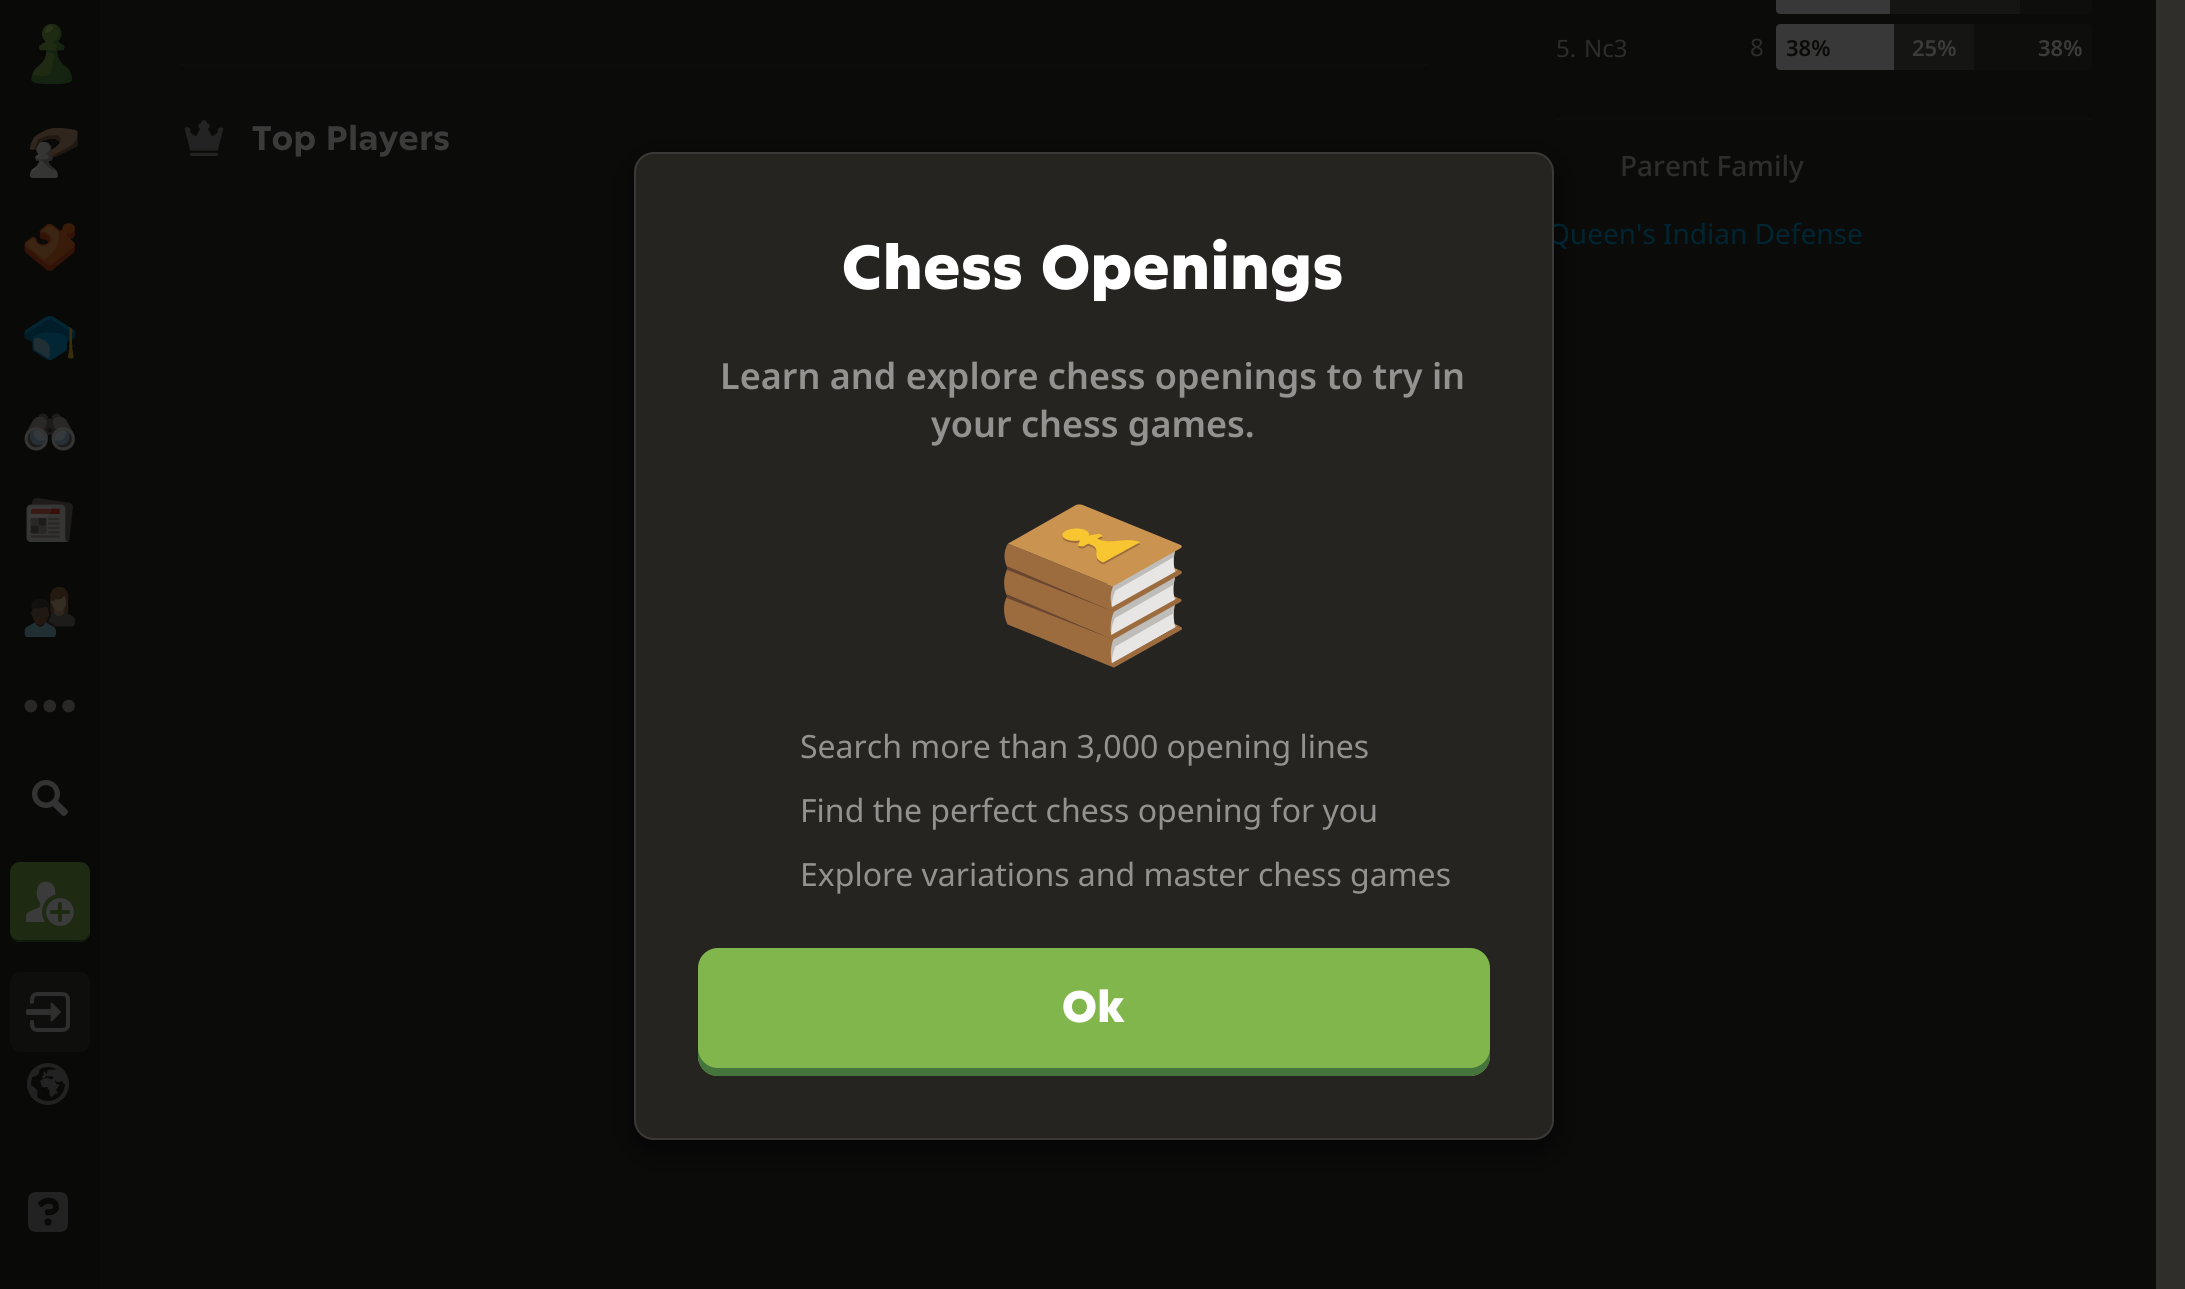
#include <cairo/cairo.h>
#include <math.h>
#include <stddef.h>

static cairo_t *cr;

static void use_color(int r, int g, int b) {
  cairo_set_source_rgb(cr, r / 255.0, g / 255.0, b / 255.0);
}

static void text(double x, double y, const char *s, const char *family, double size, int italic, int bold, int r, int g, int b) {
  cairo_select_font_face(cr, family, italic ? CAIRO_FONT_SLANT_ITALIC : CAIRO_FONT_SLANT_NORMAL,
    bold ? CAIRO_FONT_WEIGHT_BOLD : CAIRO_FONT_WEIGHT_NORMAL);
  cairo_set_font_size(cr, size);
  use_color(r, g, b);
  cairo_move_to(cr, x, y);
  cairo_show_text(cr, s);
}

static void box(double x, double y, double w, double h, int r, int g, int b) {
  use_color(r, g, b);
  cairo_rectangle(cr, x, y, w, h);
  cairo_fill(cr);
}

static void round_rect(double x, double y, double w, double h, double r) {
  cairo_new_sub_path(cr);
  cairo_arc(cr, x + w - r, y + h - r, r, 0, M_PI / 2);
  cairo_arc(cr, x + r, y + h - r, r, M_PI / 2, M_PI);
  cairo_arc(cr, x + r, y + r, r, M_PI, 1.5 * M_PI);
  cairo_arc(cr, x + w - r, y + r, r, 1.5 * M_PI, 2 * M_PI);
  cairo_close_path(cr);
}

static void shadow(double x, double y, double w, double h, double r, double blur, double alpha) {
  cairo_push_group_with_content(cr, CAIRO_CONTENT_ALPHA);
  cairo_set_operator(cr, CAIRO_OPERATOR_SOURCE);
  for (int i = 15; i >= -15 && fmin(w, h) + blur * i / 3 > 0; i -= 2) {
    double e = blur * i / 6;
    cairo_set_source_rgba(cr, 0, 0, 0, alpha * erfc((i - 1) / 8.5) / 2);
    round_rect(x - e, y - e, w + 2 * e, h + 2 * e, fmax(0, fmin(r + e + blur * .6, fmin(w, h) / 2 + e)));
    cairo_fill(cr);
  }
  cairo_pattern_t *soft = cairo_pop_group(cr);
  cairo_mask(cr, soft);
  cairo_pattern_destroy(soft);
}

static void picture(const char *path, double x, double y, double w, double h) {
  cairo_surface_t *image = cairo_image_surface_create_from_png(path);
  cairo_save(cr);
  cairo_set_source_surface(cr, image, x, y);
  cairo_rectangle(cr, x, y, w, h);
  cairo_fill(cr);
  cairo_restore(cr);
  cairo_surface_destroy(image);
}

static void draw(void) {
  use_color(48, 46, 43);
  cairo_paint(cr);
  box(100, 0, 2056, 1289, 11, 11, 10);
  box(180, 64, 1248, 2, 14, 14, 13);
  picture("img_01.png", 184, 120, 40, 36);
  use_color(56, 56, 56);
  cairo_new_path(cr);
  cairo_move_to(cr, 1780, -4);
  cairo_line_to(cr, 1890, -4);
  cairo_line_to(cr, 1890, 14);
  cairo_line_to(cr, 1780, 14);
  cairo_curve_to(cr, 1778, 14, 1776, 12, 1776, 10);
  cairo_line_to(cr, 1776, 0);
  cairo_curve_to(cr, 1776, -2, 1778, -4, 1780, -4);
  cairo_close_path(cr);
  cairo_fill(cr);
  box(1890, 0, 130, 14, 21, 21, 20);
  use_color(14, 14, 13);
  cairo_new_path(cr);
  cairo_move_to(cr, 2020, -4);
  cairo_line_to(cr, 2088, -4);
  cairo_curve_to(cr, 2090, -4, 2092, -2, 2092, 0);
  cairo_line_to(cr, 2092, 10);
  cairo_curve_to(cr, 2092, 12, 2090, 14, 2088, 14);
  cairo_line_to(cr, 2020, 14);
  cairo_close_path(cr);
  cairo_fill(cr);
  use_color(56, 56, 56);
  cairo_new_path(cr);
  cairo_move_to(cr, 1780, 24);
  cairo_line_to(cr, 1894, 24);
  cairo_line_to(cr, 1894, 70);
  cairo_line_to(cr, 1780, 70);
  cairo_curve_to(cr, 1778, 70, 1776, 68, 1776, 66);
  cairo_line_to(cr, 1776, 28);
  cairo_curve_to(cr, 1776, 26, 1778, 24, 1780, 24);
  cairo_close_path(cr);
  cairo_fill(cr);
  box(1894, 24, 80, 46, 21, 21, 20);
  use_color(14, 14, 13);
  cairo_new_path(cr);
  cairo_move_to(cr, 1974, 24);
  cairo_line_to(cr, 2088, 24);
  cairo_curve_to(cr, 2090, 24, 2092, 26, 2092, 28);
  cairo_line_to(cr, 2092, 66);
  cairo_curve_to(cr, 2092, 68, 2090, 70, 2088, 70);
  cairo_line_to(cr, 1974, 70);
  cairo_close_path(cr);
  cairo_fill(cr);
  box(1556, 118, 536, 2, 14, 14, 13);
  box(0, 0, 100, 1289, 9, 9, 8);
  picture("img_02.png", 31, 24, 41, 60);
  picture("img_03.png", 30, 128, 48, 50);
  picture("img_04.png", 24, 223, 51, 48);
  picture("img_05.png", 24, 316, 51, 44);
  picture("img_06.png", 24, 413, 51, 38);
  picture("img_07.png", 26, 498, 47, 44);
  picture("img_08.png", 24, 587, 51, 50);
  picture("img_09.png", 24, 699, 51, 14);
  picture("img_10.png", 32, 780, 36, 37);
  use_color(30, 42, 17);
  round_rect(10, 862, 80, 80, 10);
  cairo_fill(cr);
  use_color(16, 27, 14);
  cairo_new_path(cr);
  cairo_move_to(cr, 10, 930);
  cairo_curve_to(cr, 10, 943, 19, 942, 30, 942);
  cairo_line_to(cr, 70, 942);
  cairo_curve_to(cr, 81, 942, 90, 943, 90, 930);
  cairo_curve_to(cr, 90, 936, 86, 940, 80, 940);
  cairo_line_to(cr, 20, 940);
  cairo_curve_to(cr, 14, 940, 10, 936, 10, 930);
  cairo_close_path(cr);
  cairo_fill(cr);
  picture("img_11.png", 26, 881, 48, 45);
  use_color(14, 14, 13);
  round_rect(10, 972, 80, 80, 10);
  cairo_fill(cr);
  picture("img_12.png", 26, 992, 44, 40);
  picture("img_13.png", 27, 1063, 42, 42);
  picture("img_14.png", 28, 1192, 40, 40);
  use_color(0, 0, 0);
  shadow(634, 162, 920, 988, 20, 15, 0.65);
  text(252, 150, "Top Players", "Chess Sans", 34, 0, 1, 59, 59, 59);
  text(1556, 57, "5.", "Noto Sans", 24, 0, 0, 45, 45, 44);
  text(1584, 57, "Nc3", "Noto Sans", 24, 0, 0, 45, 45, 44);
  text(1750, 56, "8", "Noto Sans", 24, 0, 0, 45, 45, 44);
  text(1786, 56, "38%", "Noto Sans SemiBold", 22, 0, 0, 11, 11, 10);
  text(1912, 56, "25%", "Noto Sans SemiBold", 22, 0, 0, 59, 59, 59);
  text(2038, 56, "38%", "Noto Sans SemiBold", 22, 0, 0, 59, 59, 59);
  text(1620, 176, "Parent Family", "Noto Sans Medium", 28, 0, 0, 45, 45, 44);
  text(1548, 244, "Queen's Indian Defense", "Noto Sans", 28, 0, 0, 0, 37, 50);
  use_color(38, 36, 33);
  round_rect(634, 152, 920, 988, 20);
  cairo_fill(cr);
  round_rect(635, 153, 918, 986, 19);
  cairo_set_source_rgba(cr, 1, 1, 1, 0.1);
  cairo_stroke(cr);
  text(842, 289, "Chess Openings", "Chess Sans ExtraBold", 62, 0, 0, 255, 255, 255);
  text(720, 389, "Learn and explore chess openings to try in", "Noto Sans SemiBold", 36, 0, 0, 147, 146, 144);
  text(931, 437, "your chess games.", "Noto Sans SemiBold", 36, 0, 0, 147, 146, 144);
  picture("img_15.png", 1004, 504, 178, 164);
  text(800, 758, "Search more than 3,000 opening lines", "Noto Sans", 32, 0, 0, 147, 146, 144);
  text(800, 822, "Find the perfect chess opening for you", "Noto Sans", 32, 0, 0, 147, 146, 144);
  text(800, 886, "Explore variations and master chess games", "Noto Sans", 32, 0, 0, 147, 146, 144);
  use_color(129, 182, 76);
  round_rect(698, 948, 792, 128, 20);
  cairo_fill(cr);
  use_color(69, 117, 60);
  cairo_new_path(cr);
  cairo_move_to(cr, 698, 1048);
  cairo_line_to(cr, 698, 1056);
  cairo_curve_to(cr, 698, 1067, 707, 1076, 718, 1076);
  cairo_line_to(cr, 1470, 1076);
  cairo_curve_to(cr, 1481, 1076, 1490, 1067, 1490, 1056);
  cairo_line_to(cr, 1490, 1048);
  cairo_curve_to(cr, 1490, 1059, 1481, 1068, 1470, 1068);
  cairo_line_to(cr, 718, 1068);
  cairo_curve_to(cr, 707, 1068, 698, 1059, 698, 1048);
  cairo_close_path(cr);
  cairo_fill(cr);
  text(1062, 1022, "Ok", "Chess Sans ExtraBold", 44, 0, 0, 255, 255, 255);
}

int main(void) {
  cairo_surface_t *surface = cairo_image_surface_create(CAIRO_FORMAT_RGB24, 2185, 1289);
  cr = cairo_create(surface);
  cairo_font_options_t *options = cairo_font_options_create();
  cairo_font_options_set_hint_metrics(options, CAIRO_HINT_METRICS_OFF);
  cairo_font_options_set_hint_style(options, CAIRO_HINT_STYLE_NONE);
  cairo_set_font_options(cr, options);
  cairo_set_miter_limit(cr, 4);
  draw();
  cairo_surface_write_to_png(surface, "out.png");
  cairo_font_options_destroy(options);
  cairo_destroy(cr);
  cairo_surface_destroy(surface);
  return 0;
}
